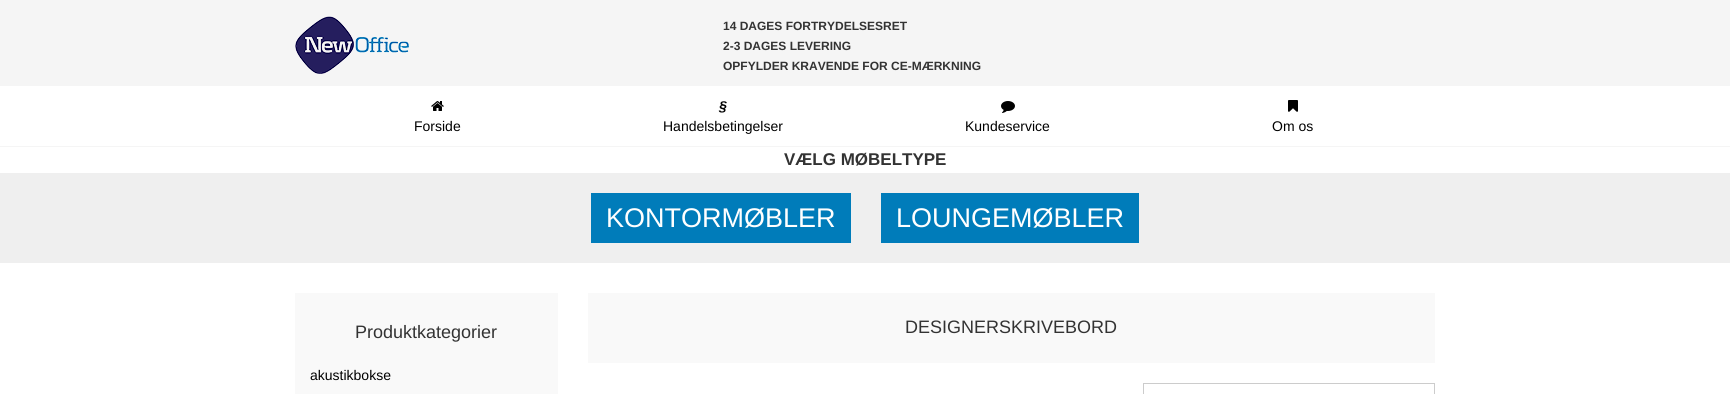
#include <cairo/cairo.h>
#include <math.h>
#include <stddef.h>

static cairo_t *cr;

static void use_color(int r, int g, int b) {
  cairo_set_source_rgb(cr, r / 255.0, g / 255.0, b / 255.0);
}

static void text(double x, double y, const char *s, const char *family, double size, int italic, int bold, int r, int g, int b) {
  cairo_select_font_face(cr, family, italic ? CAIRO_FONT_SLANT_ITALIC : CAIRO_FONT_SLANT_NORMAL,
    bold ? CAIRO_FONT_WEIGHT_BOLD : CAIRO_FONT_WEIGHT_NORMAL);
  cairo_set_font_size(cr, size);
  use_color(r, g, b);
  cairo_move_to(cr, x, y);
  cairo_show_text(cr, s);
}

static void box(double x, double y, double w, double h, int r, int g, int b) {
  use_color(r, g, b);
  cairo_rectangle(cr, x, y, w, h);
  cairo_fill(cr);
}

static void picture(const char *path, double x, double y, double w, double h) {
  cairo_surface_t *image = cairo_image_surface_create_from_png(path);
  cairo_save(cr);
  cairo_set_source_surface(cr, image, x, y);
  cairo_rectangle(cr, x, y, w, h);
  cairo_fill(cr);
  cairo_restore(cr);
  cairo_surface_destroy(image);
}

static void draw(void) {
  use_color(255, 255, 255);
  cairo_paint(cr);
  box(0, 0, 1730, 86, 245, 245, 245);
  picture("img_01.png", 295, 16, 114, 58);
  box(0, 146, 1730, 1, 245, 245, 245);
  picture("img_02.png", 431, 101, 13, 10);
  picture("img_03.png", 1001, 101, 14, 12);
  picture("img_04.png", 1288, 100, 10, 12);
  box(0, 173, 1730, 90, 239, 239, 239);
  box(591, 193, 260, 50, 0, 124, 186);
  box(881, 193, 258, 50, 0, 124, 186);
  box(295, 293, 263, 101, 249, 249, 249);
  box(588, 293, 847, 70, 249, 249, 249);
  cairo_rectangle(cr, 1143.5, 383.5, 291, 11);
  use_color(204, 204, 204);
  cairo_set_line_width(cr, 1);
  cairo_stroke(cr);
  text(723, 30, "14 DAGES FORTRYDELSESRET", "Liberation Sans", 12, 0, 1, 51, 51, 51);
  text(723, 50, "2-3 DAGES LEVERING", "Liberation Sans", 12, 0, 1, 51, 51, 51);
  text(723, 70, "OPFYLDER KRAVENDE FOR CE-MÆRKNING", "Liberation Sans", 12, 0, 1, 51, 51, 51);
  text(414, 131, "Forside", "Liberation Sans", 14, 0, 0, 0, 0, 0);
  text(719, 111, "§", "Liberation Sans", 14, 1, 1, 0, 0, 0);
  text(663, 131, "Handelsbetingelser", "Liberation Sans", 14, 0, 0, 0, 0, 0);
  text(965, 131, "Kundeservice", "Liberation Sans", 14, 0, 0, 0, 0, 0);
  text(1272, 131, "Om os", "Liberation Sans", 14, 0, 0, 0, 0, 0);
  text(784, 165, "VÆLG MØBELTYPE", "Liberation Sans", 17, 0, 1, 51, 51, 51);
  text(606, 227, "KONTORMØBLER", "Liberation Sans", 27, 0, 0, 255, 255, 255);
  text(896, 227, "LOUNGEMØBLER", "Liberation Sans", 27, 0, 0, 255, 255, 255);
  text(355, 338, "Produktkategorier", "Liberation Sans", 18, 0, 0, 51, 51, 51);
  text(310, 380, "akustikbokse", "Liberation Sans", 14, 0, 0, 0, 0, 0);
  text(905, 333, "DESIGNERSKRIVEBORD", "Liberation Sans", 18, 0, 0, 51, 51, 51);
}

int main(void) {
  cairo_surface_t *surface = cairo_image_surface_create(CAIRO_FORMAT_RGB24, 1730, 394);
  cr = cairo_create(surface);
  cairo_font_options_t *options = cairo_font_options_create();
  cairo_font_options_set_hint_metrics(options, CAIRO_HINT_METRICS_OFF);
  cairo_font_options_set_hint_style(options, CAIRO_HINT_STYLE_NONE);
  cairo_set_font_options(cr, options);
  cairo_set_miter_limit(cr, 4);
  draw();
  cairo_surface_write_to_png(surface, "out.png");
  cairo_font_options_destroy(options);
  cairo_destroy(cr);
  cairo_surface_destroy(surface);
  return 0;
}
